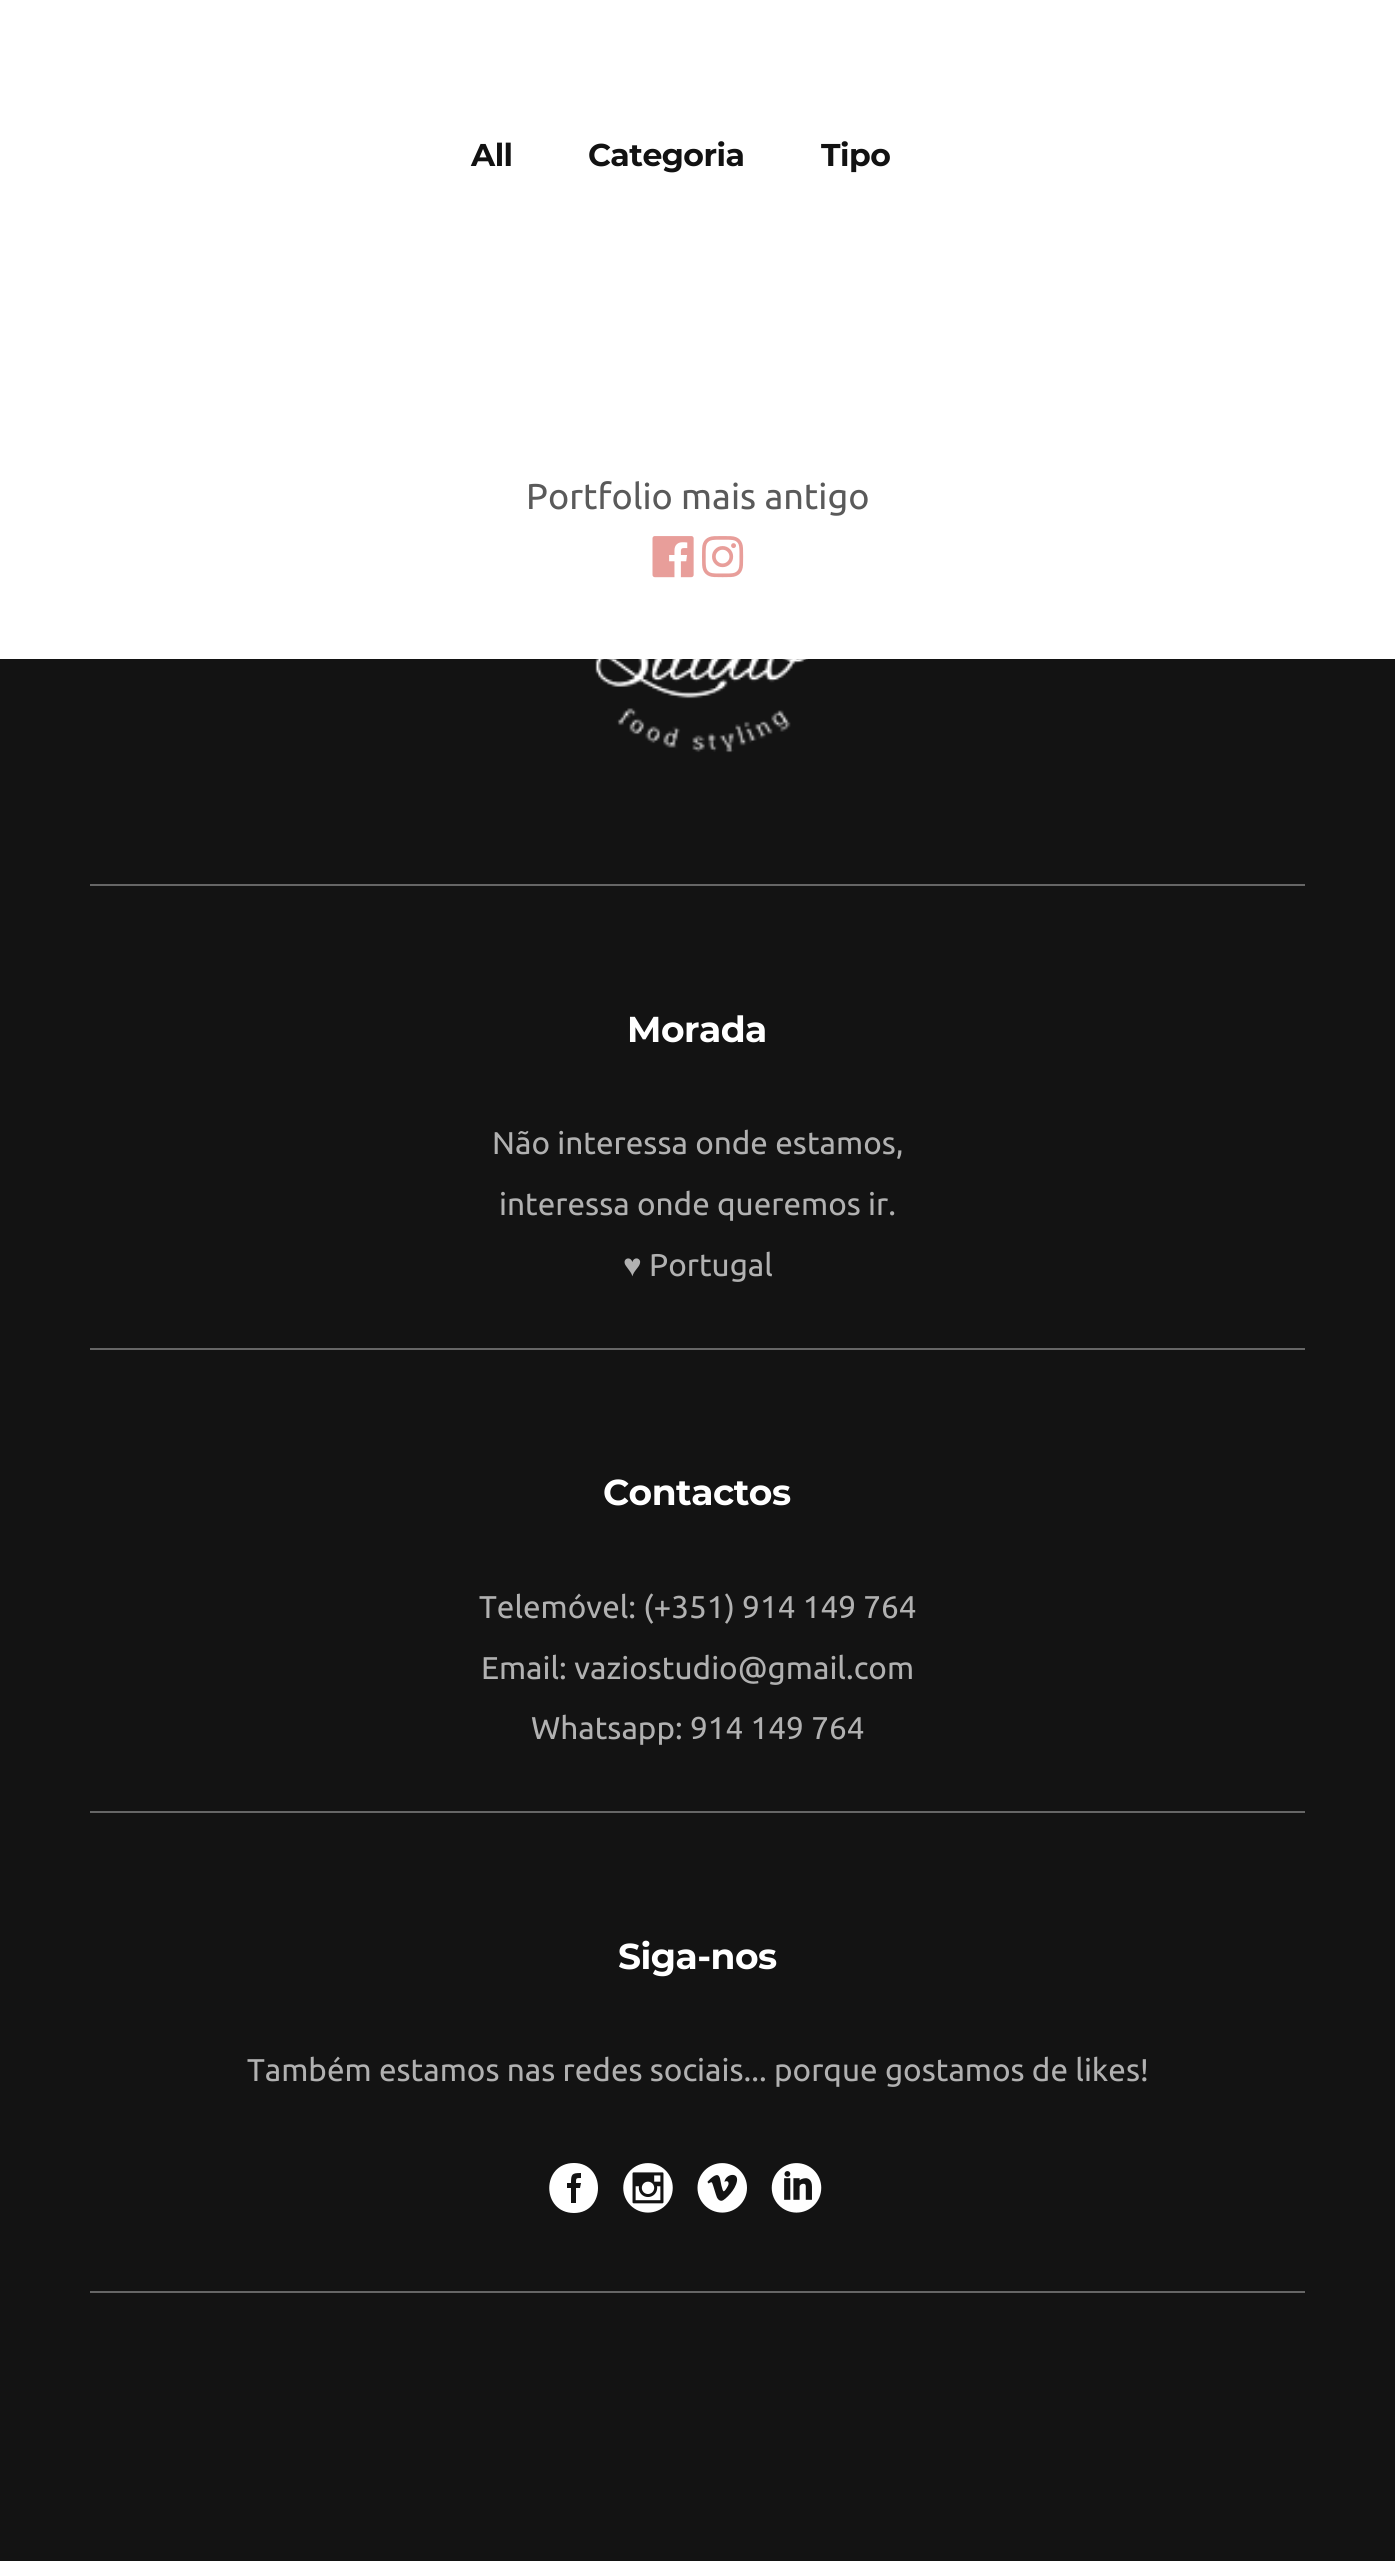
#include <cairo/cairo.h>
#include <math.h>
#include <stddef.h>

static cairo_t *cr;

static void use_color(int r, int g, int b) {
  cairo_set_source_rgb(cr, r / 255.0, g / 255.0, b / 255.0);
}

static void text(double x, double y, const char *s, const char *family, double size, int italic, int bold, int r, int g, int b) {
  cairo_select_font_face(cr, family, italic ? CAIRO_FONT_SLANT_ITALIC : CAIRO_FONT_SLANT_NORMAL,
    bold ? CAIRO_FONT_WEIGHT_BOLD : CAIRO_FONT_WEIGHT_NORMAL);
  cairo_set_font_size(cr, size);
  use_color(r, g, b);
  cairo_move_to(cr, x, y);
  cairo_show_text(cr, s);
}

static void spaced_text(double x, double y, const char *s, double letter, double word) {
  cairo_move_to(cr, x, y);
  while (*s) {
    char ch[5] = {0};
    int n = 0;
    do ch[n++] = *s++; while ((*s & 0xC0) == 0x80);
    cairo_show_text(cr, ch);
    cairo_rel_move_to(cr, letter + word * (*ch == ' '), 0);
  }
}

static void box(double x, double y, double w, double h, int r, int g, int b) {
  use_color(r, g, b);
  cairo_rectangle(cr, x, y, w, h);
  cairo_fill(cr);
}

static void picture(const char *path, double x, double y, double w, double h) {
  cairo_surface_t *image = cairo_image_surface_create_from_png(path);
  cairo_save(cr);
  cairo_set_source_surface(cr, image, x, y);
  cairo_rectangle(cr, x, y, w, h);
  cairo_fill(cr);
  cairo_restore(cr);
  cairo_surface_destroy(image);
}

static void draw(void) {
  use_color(19, 19, 19);
  cairo_paint(cr);
  box(0, 0, 1395, 659, 255, 255, 255);
  picture("img_01.png", 652, 536, 42, 42);
  picture("img_02.png", 702, 536, 42, 42);
  box(90, 884, 1215, 2, 102, 102, 102);
  picture("img_03.png", 595, 659, 213, 94);
  box(90, 1348, 1215, 2, 102, 102, 102);
  box(90, 1811, 1215, 2, 102, 102, 102);
  box(90, 2291, 1215, 2, 102, 102, 102);
  use_color(255, 255, 255);
  cairo_new_path(cr);
  cairo_move_to(cr, 574, 2163);
  cairo_curve_to(cr, 606, 2163, 606, 2213, 574, 2213);
  cairo_curve_to(cr, 541, 2213, 541, 2163, 574, 2163);
  cairo_close_path(cr);
  cairo_move_to(cr, 580, 2188);
  cairo_line_to(cr, 581, 2183);
  cairo_line_to(cr, 576, 2183);
  cairo_curve_to(cr, 576, 2178, 576, 2178, 581, 2178);
  cairo_line_to(cr, 581, 2173);
  cairo_curve_to(cr, 572, 2173, 571, 2174, 571, 2183);
  cairo_line_to(cr, 567, 2183);
  cairo_line_to(cr, 567, 2188);
  cairo_line_to(cr, 571, 2188);
  cairo_line_to(cr, 571, 2203);
  cairo_line_to(cr, 576, 2203);
  cairo_line_to(cr, 576, 2188);
  cairo_close_path(cr);
  cairo_fill(cr);
  picture("img_04.png", 623, 2163, 50, 50);
  picture("img_05.png", 697, 2163, 50, 50);
  picture("img_06.png", 771, 2163, 51, 50);
  cairo_select_font_face(cr, "Montserrat", CAIRO_FONT_SLANT_NORMAL, CAIRO_FONT_WEIGHT_BOLD);
  cairo_set_font_size(cr, 31.5);
  use_color(18, 18, 18);
  spaced_text(471, 166, "All", -0.5, 0);
  spaced_text(588, 166, "Categoria", -0.5, 0);
  spaced_text(821, 166, "Tipo", -0.5, 0);
  text(526, 509, "Portfolio mais antigo", "Ubuntu", 36, 0, 0, 90, 90, 90);
  cairo_select_font_face(cr, "Montserrat", CAIRO_FONT_SLANT_NORMAL, CAIRO_FONT_WEIGHT_BOLD);
  use_color(255, 255, 255);
  spaced_text(627, 1042, "Morada", -0.5, 0);
  text(492, 1154, "Não interessa onde estamos,", "Ubuntu", 31.5, 0, 0, 177, 177, 177);
  text(499, 1215, "interessa onde queremos ir.", "Ubuntu", 31.5, 0, 0, 177, 177, 177);
  text(623, 1276, "♥", "Liberation Sans", 31.5, 0, 0, 177, 177, 177);
  text(649, 1276, "Portugal", "Ubuntu", 31.5, 0, 0, 177, 177, 177);
  cairo_select_font_face(cr, "Montserrat", CAIRO_FONT_SLANT_NORMAL, CAIRO_FONT_WEIGHT_BOLD);
  cairo_set_font_size(cr, 36);
  use_color(255, 255, 255);
  spaced_text(603, 1505, "Contactos", -0.5, 0);
  text(479, 1618, "Telemóvel: (+351) 914 149 764", "Ubuntu", 31.5, 0, 0, 177, 177, 177);
  text(481, 1679, "Email: vaziostudio@gmail.com", "Ubuntu", 31.5, 0, 0, 177, 177, 177);
  text(531, 1739, "Whatsapp: 914 149 764", "Ubuntu", 31.5, 0, 0, 177, 177, 177);
  cairo_select_font_face(cr, "Montserrat", CAIRO_FONT_SLANT_NORMAL, CAIRO_FONT_WEIGHT_BOLD);
  cairo_set_font_size(cr, 36);
  use_color(255, 255, 255);
  spaced_text(618, 1969, "Siga-nos", -0.5, 0);
  text(247, 2081, "Também estamos nas redes sociais... porque gostamos de likes!", "Ubuntu", 31.5, 0, 0, 177, 177, 177);
}

int main(void) {
  cairo_surface_t *surface = cairo_image_surface_create(CAIRO_FORMAT_RGB24, 1395, 2561);
  cr = cairo_create(surface);
  cairo_font_options_t *options = cairo_font_options_create();
  cairo_font_options_set_hint_metrics(options, CAIRO_HINT_METRICS_OFF);
  cairo_font_options_set_hint_style(options, CAIRO_HINT_STYLE_NONE);
  cairo_set_font_options(cr, options);
  cairo_set_miter_limit(cr, 4);
  draw();
  cairo_surface_write_to_png(surface, "out.png");
  cairo_font_options_destroy(options);
  cairo_destroy(cr);
  cairo_surface_destroy(surface);
  return 0;
}
